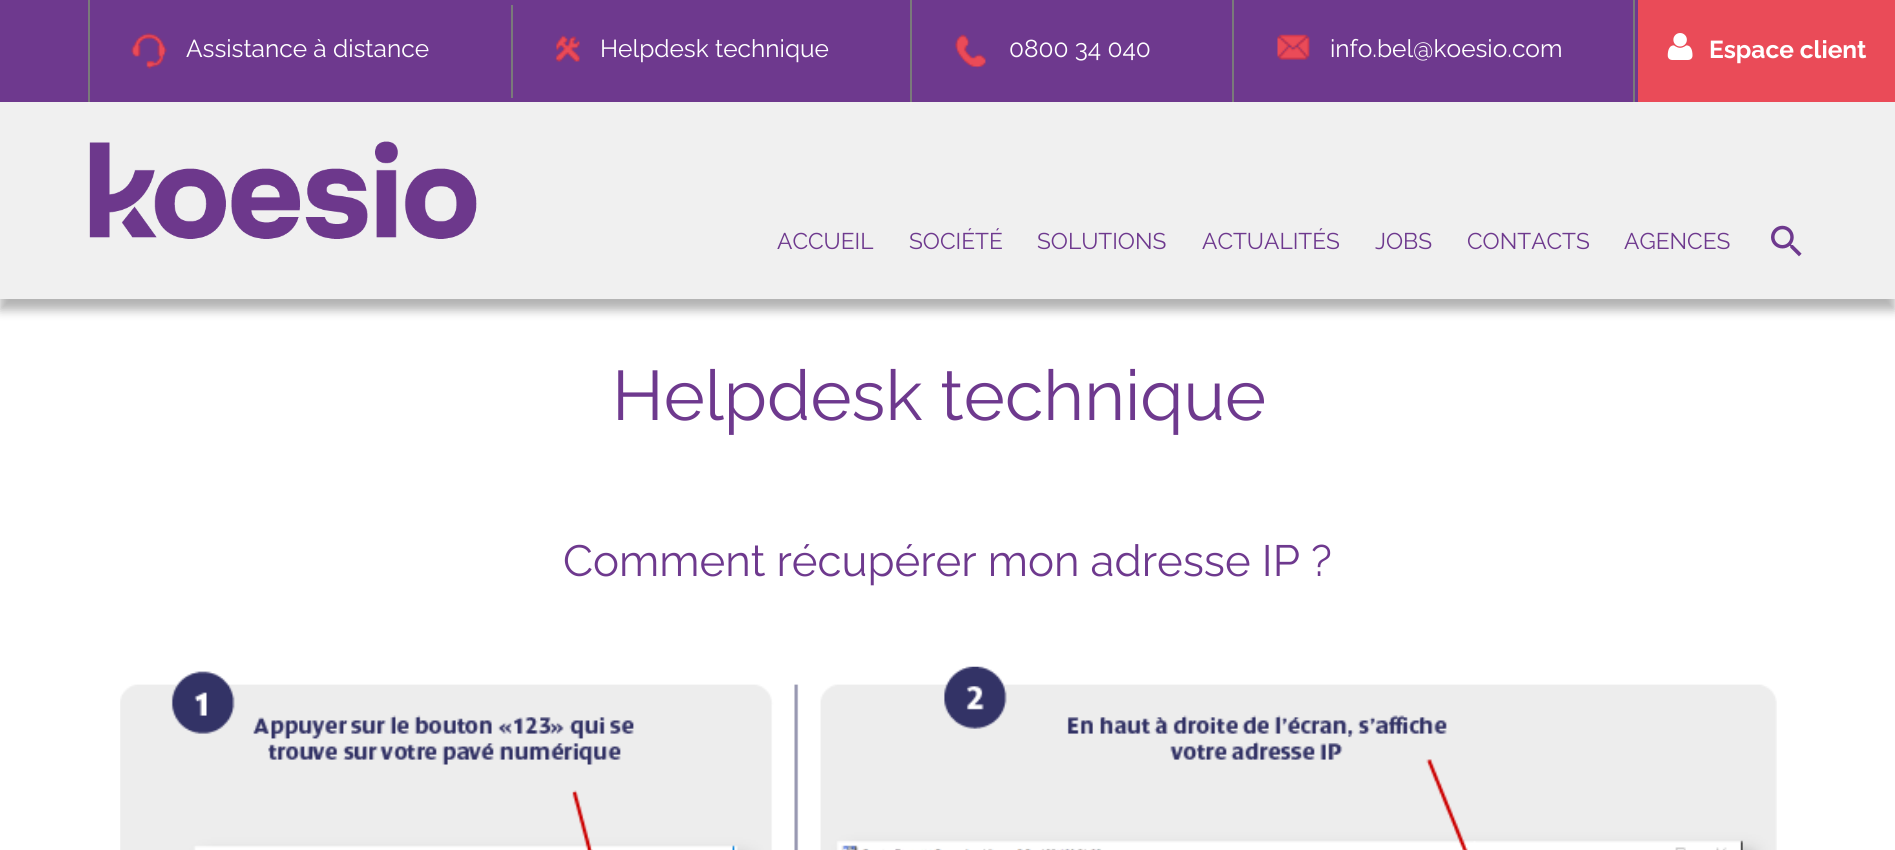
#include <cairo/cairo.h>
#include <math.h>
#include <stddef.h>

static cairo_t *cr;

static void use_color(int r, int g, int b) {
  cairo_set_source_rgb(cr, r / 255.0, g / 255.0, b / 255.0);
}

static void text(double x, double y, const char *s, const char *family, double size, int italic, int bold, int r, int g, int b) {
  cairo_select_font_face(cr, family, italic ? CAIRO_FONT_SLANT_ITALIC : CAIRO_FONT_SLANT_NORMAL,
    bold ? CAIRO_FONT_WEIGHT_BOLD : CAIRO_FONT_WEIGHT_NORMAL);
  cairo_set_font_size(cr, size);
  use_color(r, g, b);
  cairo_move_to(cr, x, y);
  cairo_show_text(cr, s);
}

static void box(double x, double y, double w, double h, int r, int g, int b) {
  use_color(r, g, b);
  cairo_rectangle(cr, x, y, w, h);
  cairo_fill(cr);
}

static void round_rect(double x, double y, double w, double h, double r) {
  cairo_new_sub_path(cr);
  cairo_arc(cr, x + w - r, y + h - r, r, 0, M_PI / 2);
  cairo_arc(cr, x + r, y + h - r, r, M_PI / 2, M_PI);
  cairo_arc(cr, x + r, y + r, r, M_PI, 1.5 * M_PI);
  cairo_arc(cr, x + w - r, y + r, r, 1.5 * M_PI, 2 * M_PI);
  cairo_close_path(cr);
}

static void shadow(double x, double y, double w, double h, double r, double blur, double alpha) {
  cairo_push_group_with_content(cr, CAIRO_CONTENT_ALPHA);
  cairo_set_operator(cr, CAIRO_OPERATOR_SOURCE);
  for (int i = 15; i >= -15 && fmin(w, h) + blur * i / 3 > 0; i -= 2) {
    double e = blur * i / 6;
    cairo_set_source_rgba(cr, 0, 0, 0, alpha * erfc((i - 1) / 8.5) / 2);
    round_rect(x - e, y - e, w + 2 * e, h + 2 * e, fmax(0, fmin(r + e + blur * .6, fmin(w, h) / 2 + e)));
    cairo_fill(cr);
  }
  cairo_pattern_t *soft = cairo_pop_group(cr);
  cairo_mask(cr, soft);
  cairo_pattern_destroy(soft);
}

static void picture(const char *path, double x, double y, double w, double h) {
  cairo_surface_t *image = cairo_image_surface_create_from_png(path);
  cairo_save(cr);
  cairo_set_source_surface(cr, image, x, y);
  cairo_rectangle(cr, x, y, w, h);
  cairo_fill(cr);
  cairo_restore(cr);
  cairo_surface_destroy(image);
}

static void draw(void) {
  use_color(255, 255, 255);
  cairo_paint(cr);
  box(0, 0, 1638, 102, 110, 57, 142);
  box(88, 0, 2, 102, 122, 122, 122);
  picture("img_01.png", 131, 33, 36, 36);
  box(511, 5, 2, 93, 122, 122, 122);
  picture("img_02.png", 554, 34, 26, 28);
  box(910, 0, 2, 102, 122, 122, 122);
  picture("img_03.png", 955, 34, 31, 35);
  box(1633, 0, 2, 102, 122, 122, 122);
  box(1232, 0, 2, 102, 122, 122, 122);
  picture("img_04.png", 1277, 34, 33, 26);
  use_color(0, 0, 0);
  shadow(0, 112, 1895, 198, 0, 5, 0.3);
  box(0, 102, 1895, 197, 240, 240, 240);
  picture("img_05.png", 89, 141, 388, 98);
  picture("img_06.png", 1771, 225, 31, 32);
  picture("img_07.png", 120, 666, 1657, 184);
  box(1638, 0, 257, 102, 234, 75, 88);
  picture("img_08.png", 1667, 33, 26, 27);
  text(186, 57, "Assistance à distance", "Raleway", 24.5, 0, 0, 255, 255, 255);
  text(600, 57, "Helpdesk technique", "Raleway", 24.5, 0, 0, 255, 255, 255);
  text(1009, 57, "0800 34 040", "Raleway", 24.5, 0, 0, 255, 255, 255);
  text(1330, 57, "info.bel@koesio.com", "Raleway", 24.5, 0, 0, 255, 255, 255);
  text(777, 249, "ACCUEIL", "Raleway", 22.75, 0, 0, 110, 57, 142);
  text(909, 249, "SOCIÉTÉ", "Raleway", 22.75, 0, 0, 110, 57, 142);
  text(1037, 249, "SOLUTIONS", "Raleway", 22.75, 0, 0, 110, 57, 142);
  text(1202, 249, "ACTUALITÉS", "Raleway", 22.75, 0, 0, 110, 57, 142);
  text(1375, 249, "JOBS", "Raleway", 22.75, 0, 0, 110, 57, 142);
  text(1467, 249, "CONTACTS", "Raleway", 22.75, 0, 0, 110, 57, 142);
  text(1624, 249, "AGENCES", "Raleway", 22.75, 0, 0, 110, 57, 142);
  text(612, 420, "Helpdesk technique", "Raleway", 70, 0, 0, 110, 57, 142);
  text(563, 576, "Comment récupérer mon adresse IP ?", "Raleway", 43.75, 0, 0, 110, 57, 142);
  text(1709, 58, "Espace client", "Raleway", 24.5, 0, 1, 255, 255, 255);
}

int main(void) {
  cairo_surface_t *surface = cairo_image_surface_create(CAIRO_FORMAT_RGB24, 1895, 850);
  cr = cairo_create(surface);
  cairo_font_options_t *options = cairo_font_options_create();
  cairo_font_options_set_hint_metrics(options, CAIRO_HINT_METRICS_OFF);
  cairo_font_options_set_hint_style(options, CAIRO_HINT_STYLE_NONE);
  cairo_set_font_options(cr, options);
  cairo_set_miter_limit(cr, 4);
  draw();
  cairo_surface_write_to_png(surface, "out.png");
  cairo_font_options_destroy(options);
  cairo_destroy(cr);
  cairo_surface_destroy(surface);
  return 0;
}
